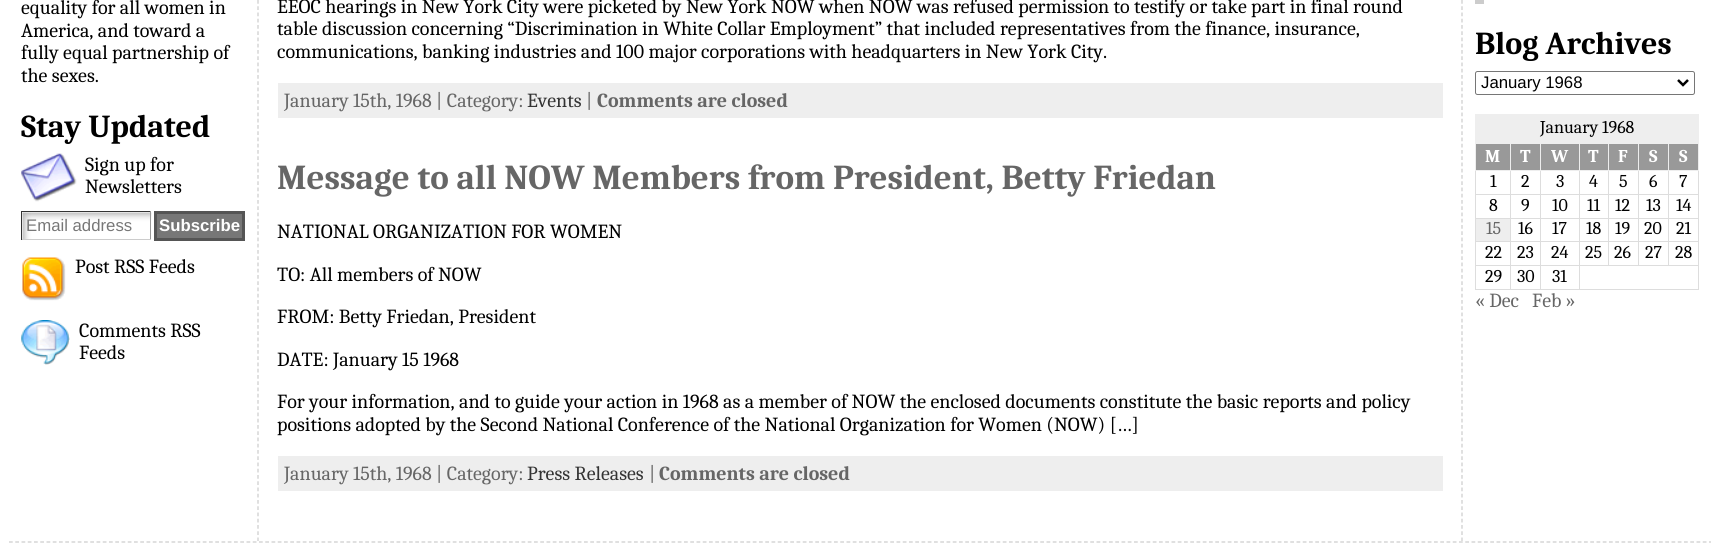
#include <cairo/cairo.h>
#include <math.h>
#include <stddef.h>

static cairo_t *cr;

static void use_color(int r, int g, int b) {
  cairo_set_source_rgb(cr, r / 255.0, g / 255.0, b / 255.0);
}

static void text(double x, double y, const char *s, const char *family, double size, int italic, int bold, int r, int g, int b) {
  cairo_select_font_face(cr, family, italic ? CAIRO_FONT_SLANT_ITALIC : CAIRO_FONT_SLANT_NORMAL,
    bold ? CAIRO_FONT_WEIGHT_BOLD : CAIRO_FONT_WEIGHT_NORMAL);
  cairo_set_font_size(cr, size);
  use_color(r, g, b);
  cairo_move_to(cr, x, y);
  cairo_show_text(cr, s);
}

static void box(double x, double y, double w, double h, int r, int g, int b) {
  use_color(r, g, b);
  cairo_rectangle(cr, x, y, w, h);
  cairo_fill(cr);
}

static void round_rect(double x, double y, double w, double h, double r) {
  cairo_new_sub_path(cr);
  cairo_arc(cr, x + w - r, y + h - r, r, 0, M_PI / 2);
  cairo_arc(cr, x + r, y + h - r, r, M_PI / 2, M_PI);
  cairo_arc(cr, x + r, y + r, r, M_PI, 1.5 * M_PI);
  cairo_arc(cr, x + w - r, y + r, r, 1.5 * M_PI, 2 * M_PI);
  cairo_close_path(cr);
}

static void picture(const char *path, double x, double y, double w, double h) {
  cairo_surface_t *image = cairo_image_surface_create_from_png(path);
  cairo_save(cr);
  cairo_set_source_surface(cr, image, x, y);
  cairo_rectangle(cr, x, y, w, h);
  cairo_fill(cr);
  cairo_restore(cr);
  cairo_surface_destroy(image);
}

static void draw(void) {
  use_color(255, 255, 255);
  cairo_paint(cr);
  cairo_new_path(cr);
  cairo_move_to(cr, 258, -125);
  cairo_line_to(cr, 258, 541);
  use_color(204, 204, 204);
  cairo_set_line_width(cr, 1.2);
  cairo_set_dash(cr, (double[]){3.75, 2.5}, 2, 0);
  cairo_stroke(cr);
  picture("img_01.png", 21, 153, 56, 49);
  picture("img_02.png", 22, 212, 130, 28);
  box(21, 211, 130, 1, 51, 51, 51);
  box(150, 211, 1, 29, 153, 153, 153);
  box(21, 239, 130, 1, 204, 204, 204);
  box(21, 211, 1, 29, 51, 51, 51);
  use_color(119, 119, 119);
  cairo_rectangle(cr, 155.5, 212.5, 88, 27);
  cairo_fill_preserve(cr);
  use_color(85, 85, 85);
  cairo_set_line_width(cr, 3);
  cairo_set_dash(cr, NULL, 0, 0);
  cairo_stroke(cr);
  picture("img_03.png", 22, 257, 44, 44);
  picture("img_04.png", 21, 320, 49, 45);
  box(278, 83, 1165, 35, 238, 238, 238);
  box(278, 456, 1165, 35, 238, 238, 238);
  cairo_new_path(cr);
  cairo_move_to(cr, 1462, -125);
  cairo_line_to(cr, 1462, 541);
  use_color(204, 204, 204);
  cairo_set_line_width(cr, 1.2);
  cairo_set_dash(cr, (double[]){3.75, 2.5}, 2, 0);
  cairo_stroke(cr);
  box(1475, 0, 9, 4, 204, 204, 204);
  round_rect(1475.5, 71.5, 219, 23, 2);
  use_color(118, 118, 118);
  cairo_set_line_width(cr, 1);
  cairo_set_dash(cr, NULL, 0, 0);
  cairo_stroke(cr);
  cairo_new_path(cr);
  cairo_move_to(cr, 1678, 80);
  cairo_line_to(cr, 1683, 85);
  cairo_line_to(cr, 1688, 80);
  use_color(0, 0, 0);
  cairo_set_line_width(cr, 2.5);
  cairo_stroke(cr);
  box(1475, 114, 224, 29, 238, 238, 238);
  box(1476, 144, 34, 26, 153, 153, 153);
  box(1668, 143, 31, 1, 238, 238, 238);
  box(1668, 194, 31, 1, 221, 221, 221);
  box(1668, 218, 31, 1, 221, 221, 221);
  box(1668, 241, 31, 1, 221, 221, 221);
  box(1579, 265, 120, 1, 221, 221, 221);
  box(1698, 265, 1, 25, 221, 221, 221);
  box(1698, 241, 1, 25, 221, 221, 221);
  box(1698, 218, 1, 25, 221, 221, 221);
  box(1698, 170, 1, 49, 221, 221, 221);
  box(1698, 143, 1, 28, 238, 238, 238);
  box(1668, 241, 1, 25, 221, 221, 221);
  box(1638, 241, 31, 1, 221, 221, 221);
  box(1668, 218, 1, 25, 221, 221, 221);
  box(1638, 218, 31, 1, 221, 221, 221);
  box(1668, 194, 1, 25, 221, 221, 221);
  box(1638, 194, 31, 1, 221, 221, 221);
  box(1668, 170, 1, 25, 221, 221, 221);
  box(1668, 170, 31, 1, 238, 238, 238);
  box(1668, 143, 1, 28, 238, 238, 238);
  box(1638, 143, 31, 1, 238, 238, 238);
  box(1638, 241, 1, 25, 221, 221, 221);
  box(1608, 241, 31, 1, 221, 221, 221);
  box(1638, 218, 1, 25, 221, 221, 221);
  box(1608, 218, 31, 1, 221, 221, 221);
  box(1638, 194, 1, 25, 221, 221, 221);
  box(1608, 194, 31, 1, 221, 221, 221);
  box(1638, 170, 1, 25, 221, 221, 221);
  box(1638, 170, 31, 1, 238, 238, 238);
  box(1638, 143, 1, 28, 238, 238, 238);
  box(1608, 143, 31, 1, 238, 238, 238);
  box(1608, 241, 1, 25, 221, 221, 221);
  box(1579, 241, 30, 1, 221, 221, 221);
  box(1608, 218, 1, 25, 221, 221, 221);
  box(1579, 218, 30, 1, 221, 221, 221);
  box(1608, 194, 1, 25, 221, 221, 221);
  box(1579, 194, 30, 1, 221, 221, 221);
  box(1608, 170, 1, 25, 221, 221, 221);
  box(1608, 170, 31, 1, 238, 238, 238);
  box(1608, 143, 1, 28, 238, 238, 238);
  box(1579, 143, 30, 1, 238, 238, 238);
  box(1579, 289, 120, 1, 221, 221, 221);
  box(1579, 265, 1, 25, 221, 221, 221);
  box(1540, 265, 40, 1, 221, 221, 221);
  box(1579, 241, 1, 25, 221, 221, 221);
  box(1540, 241, 40, 1, 221, 221, 221);
  box(1579, 218, 1, 25, 221, 221, 221);
  box(1540, 218, 40, 1, 221, 221, 221);
  box(1579, 194, 1, 25, 221, 221, 221);
  box(1540, 194, 40, 1, 221, 221, 221);
  box(1579, 170, 1, 25, 221, 221, 221);
  box(1579, 170, 30, 1, 238, 238, 238);
  box(1579, 143, 1, 28, 238, 238, 238);
  box(1540, 143, 40, 1, 238, 238, 238);
  box(1540, 289, 40, 1, 221, 221, 221);
  box(1540, 265, 1, 25, 221, 221, 221);
  box(1510, 265, 31, 1, 221, 221, 221);
  box(1540, 241, 1, 25, 221, 221, 221);
  box(1510, 241, 31, 1, 221, 221, 221);
  box(1540, 218, 1, 25, 221, 221, 221);
  box(1510, 218, 31, 1, 221, 221, 221);
  box(1540, 194, 1, 25, 221, 221, 221);
  box(1510, 194, 31, 1, 221, 221, 221);
  box(1540, 170, 1, 25, 221, 221, 221);
  box(1540, 170, 40, 1, 238, 238, 238);
  box(1540, 143, 1, 28, 238, 238, 238);
  box(1510, 143, 31, 1, 238, 238, 238);
  box(1510, 289, 31, 1, 221, 221, 221);
  box(1510, 265, 1, 25, 221, 221, 221);
  box(1475, 265, 36, 1, 221, 221, 221);
  box(1510, 241, 1, 25, 221, 221, 221);
  box(1475, 241, 36, 1, 221, 221, 221);
  box(1510, 218, 1, 25, 221, 221, 221);
  box(1475, 218, 36, 1, 221, 221, 221);
  box(1510, 194, 1, 25, 221, 221, 221);
  box(1475, 194, 36, 1, 221, 221, 221);
  box(1510, 170, 1, 25, 221, 221, 221);
  box(1510, 170, 31, 1, 238, 238, 238);
  box(1510, 143, 1, 28, 238, 238, 238);
  box(1475, 143, 36, 1, 238, 238, 238);
  box(1475, 289, 36, 1, 221, 221, 221);
  box(1475, 265, 1, 25, 221, 221, 221);
  box(1475, 241, 1, 25, 221, 221, 221);
  box(1475, 218, 1, 25, 221, 221, 221);
  box(1475, 170, 1, 49, 221, 221, 221);
  box(1475, 170, 36, 1, 238, 238, 238);
  box(1475, 143, 1, 28, 238, 238, 238);
  box(1511, 144, 29, 26, 153, 153, 153);
  box(1541, 144, 38, 26, 153, 153, 153);
  box(1580, 144, 28, 26, 153, 153, 153);
  box(1609, 144, 29, 26, 153, 153, 153);
  box(1639, 144, 29, 26, 153, 153, 153);
  box(1669, 144, 29, 26, 153, 153, 153);
  box(1476, 219, 34, 22, 238, 238, 238);
  cairo_new_path(cr);
  cairo_move_to(cr, 9, 542);
  cairo_line_to(cr, 1711, 542);
  use_color(204, 204, 204);
  cairo_set_line_width(cr, 1.2);
  cairo_set_dash(cr, (double[]){3.75, 2.5}, 2, 0);
  cairo_stroke(cr);
  text(21, 14, "equality for all women in", "Caladea", 20, 0, 0, 0, 0, 0);
  text(21, 37, "America, and toward a", "Caladea", 20, 0, 0, 0, 0, 0);
  text(21, 59, "fully equal partnership of", "Caladea", 20, 0, 0, 0, 0, 0);
  text(21, 82, "the sexes.", "Caladea", 20, 0, 0, 0, 0, 0);
  text(21, 137, "Stay Updated", "Caladea", 32, 0, 1, 0, 0, 0);
  text(85, 171, "Sign up for", "Caladea", 20, 0, 0, 0, 0, 0);
  text(85, 193, "Newsletters", "Caladea", 20, 0, 0, 0, 0, 0);
  text(26, 231, "Email address", "Liberation Sans", 16.75, 0, 0, 119, 119, 119);
  text(159, 231, "Subscribe", "Liberation Sans", 16.75, 0, 1, 255, 255, 255);
  text(75, 273, "Post RSS Feeds", "Caladea", 20, 0, 0, 0, 0, 0);
  text(79, 337, "Comments RSS", "Caladea", 20, 0, 0, 0, 0, 0);
  text(79, 359, "Feeds", "Caladea", 20, 0, 0, 0, 0, 0);
  text(277, 13, "EEOC hearings in New York City were picketed by New York NOW when NOW was refused permission to testify or take part in final round", "Caladea", 20, 0, 0, 0, 0, 0);
  text(277, 35, "table discussion concerning “Discrimination in White Collar Employment” that included representatives from the finance, insurance,", "Caladea", 20, 0, 0, 0, 0, 0);
  text(277, 58, "communications, banking industries and 100 major corporations with headquarters in New York City.", "Caladea", 20, 0, 0, 0, 0, 0);
  text(284, 107, "January 15th, 1968 | Category:", "Caladea", 20, 0, 0, 102, 102, 102);
  text(527, 107, "Events", "Caladea", 20, 0, 0, 51, 51, 51);
  text(586, 107, "|", "Caladea", 20, 0, 0, 102, 102, 102);
  text(597, 107, "Comments are closed", "Caladea", 20, 0, 1, 102, 102, 102);
  text(277, 189, "Message to all NOW Members from President, Betty Friedan", "Caladea", 35, 0, 1, 102, 102, 102);
  text(277, 238, "NATIONAL ORGANIZATION FOR WOMEN", "Caladea", 20, 0, 0, 0, 0, 0);
  text(277, 281, "TO: All members of NOW", "Caladea", 20, 0, 0, 0, 0, 0);
  text(277, 323, "FROM: Betty Friedan, President", "Caladea", 20, 0, 0, 0, 0, 0);
  text(277, 366, "DATE: January 15 1968", "Caladea", 20, 0, 0, 0, 0, 0);
  text(277, 408, "For your information, and to guide your action in 1968 as a member of NOW the enclosed documents constitute the basic reports and policy", "Caladea", 20, 0, 0, 0, 0, 0);
  text(277, 431, "positions adopted by the Second National Conference of the National Organization for Women (NOW) […]", "Caladea", 20, 0, 0, 0, 0, 0);
  text(284, 480, "January 15th, 1968 | Category:", "Caladea", 20, 0, 0, 102, 102, 102);
  text(527, 480, "Press Releases", "Caladea", 20, 0, 0, 51, 51, 51);
  text(649, 480, "|", "Caladea", 20, 0, 0, 102, 102, 102);
  text(659, 480, "Comments are closed", "Caladea", 20, 0, 1, 102, 102, 102);
  text(1475, 54, "Blog Archives", "Caladea", 32, 0, 1, 0, 0, 0);
  text(1481, 88, "January 1968", "Liberation Sans", 16.75, 0, 0, 0, 0, 0);
  text(1540, 133, "January 1968", "Caladea", 18, 0, 0, 0, 0, 0);
  text(1485, 162, "M", "Caladea", 18, 0, 1, 255, 255, 255);
  text(1520, 162, "T", "Caladea", 18, 0, 1, 255, 255, 255);
  text(1551, 162, "W", "Caladea", 18, 0, 1, 255, 255, 255);
  text(1588, 162, "T", "Caladea", 18, 0, 1, 255, 255, 255);
  text(1618, 162, "F", "Caladea", 18, 0, 1, 255, 255, 255);
  text(1649, 162, "S", "Caladea", 18, 0, 1, 255, 255, 255);
  text(1679, 162, "S", "Caladea", 18, 0, 1, 255, 255, 255);
  text(1490, 187, "1", "Caladea", 18, 0, 0, 0, 0, 0);
  text(1521, 187, "2", "Caladea", 18, 0, 0, 0, 0, 0);
  text(1556, 187, "3", "Caladea", 18, 0, 0, 0, 0, 0);
  text(1589, 187, "4", "Caladea", 18, 0, 0, 0, 0, 0);
  text(1619, 187, "5", "Caladea", 18, 0, 0, 0, 0, 0);
  text(1649, 187, "6", "Caladea", 18, 0, 0, 0, 0, 0);
  text(1679, 187, "7", "Caladea", 18, 0, 0, 0, 0, 0);
  text(1489, 211, "8", "Caladea", 18, 0, 0, 0, 0, 0);
  text(1521, 211, "9", "Caladea", 18, 0, 0, 0, 0, 0);
  text(1552, 211, "10", "Caladea", 18, 0, 0, 0, 0, 0);
  text(1587, 211, "11", "Caladea", 18, 0, 0, 0, 0, 0);
  text(1615, 211, "12", "Caladea", 18, 0, 0, 0, 0, 0);
  text(1646, 211, "13", "Caladea", 18, 0, 0, 0, 0, 0);
  text(1676, 211, "14", "Caladea", 18, 0, 0, 0, 0, 0);
  text(1486, 234, "15", "Caladea", 18, 0, 0, 102, 102, 102);
  text(1518, 234, "16", "Caladea", 18, 0, 0, 0, 0, 0);
  text(1552, 234, "17", "Caladea", 18, 0, 0, 0, 0, 0);
  text(1586, 234, "18", "Caladea", 18, 0, 0, 0, 0, 0);
  text(1615, 234, "19", "Caladea", 18, 0, 0, 0, 0, 0);
  text(1644, 234, "20", "Caladea", 18, 0, 0, 0, 0, 0);
  text(1676, 234, "21", "Caladea", 18, 0, 0, 0, 0, 0);
  text(1485, 258, "22", "Caladea", 18, 0, 0, 0, 0, 0);
  text(1517, 258, "23", "Caladea", 18, 0, 0, 0, 0, 0);
  text(1551, 258, "24", "Caladea", 18, 0, 0, 0, 0, 0);
  text(1585, 258, "25", "Caladea", 18, 0, 0, 0, 0, 0);
  text(1614, 258, "26", "Caladea", 18, 0, 0, 0, 0, 0);
  text(1645, 258, "27", "Caladea", 18, 0, 0, 0, 0, 0);
  text(1675, 258, "28", "Caladea", 18, 0, 0, 0, 0, 0);
  text(1485, 282, "29", "Caladea", 18, 0, 0, 0, 0, 0);
  text(1517, 282, "30", "Caladea", 18, 0, 0, 0, 0, 0);
  text(1552, 282, "31", "Caladea", 18, 0, 0, 0, 0, 0);
  text(1475, 307, "« Dec", "Caladea", 20, 0, 0, 102, 102, 102);
  text(1532, 307, "Feb »", "Caladea", 20, 0, 0, 102, 102, 102);
}

int main(void) {
  cairo_surface_t *surface = cairo_image_surface_create(CAIRO_FORMAT_RGB24, 1720, 548);
  cr = cairo_create(surface);
  cairo_font_options_t *options = cairo_font_options_create();
  cairo_font_options_set_hint_metrics(options, CAIRO_HINT_METRICS_OFF);
  cairo_font_options_set_hint_style(options, CAIRO_HINT_STYLE_NONE);
  cairo_set_font_options(cr, options);
  cairo_set_miter_limit(cr, 4);
  draw();
  cairo_surface_write_to_png(surface, "out.png");
  cairo_font_options_destroy(options);
  cairo_destroy(cr);
  cairo_surface_destroy(surface);
  return 0;
}
